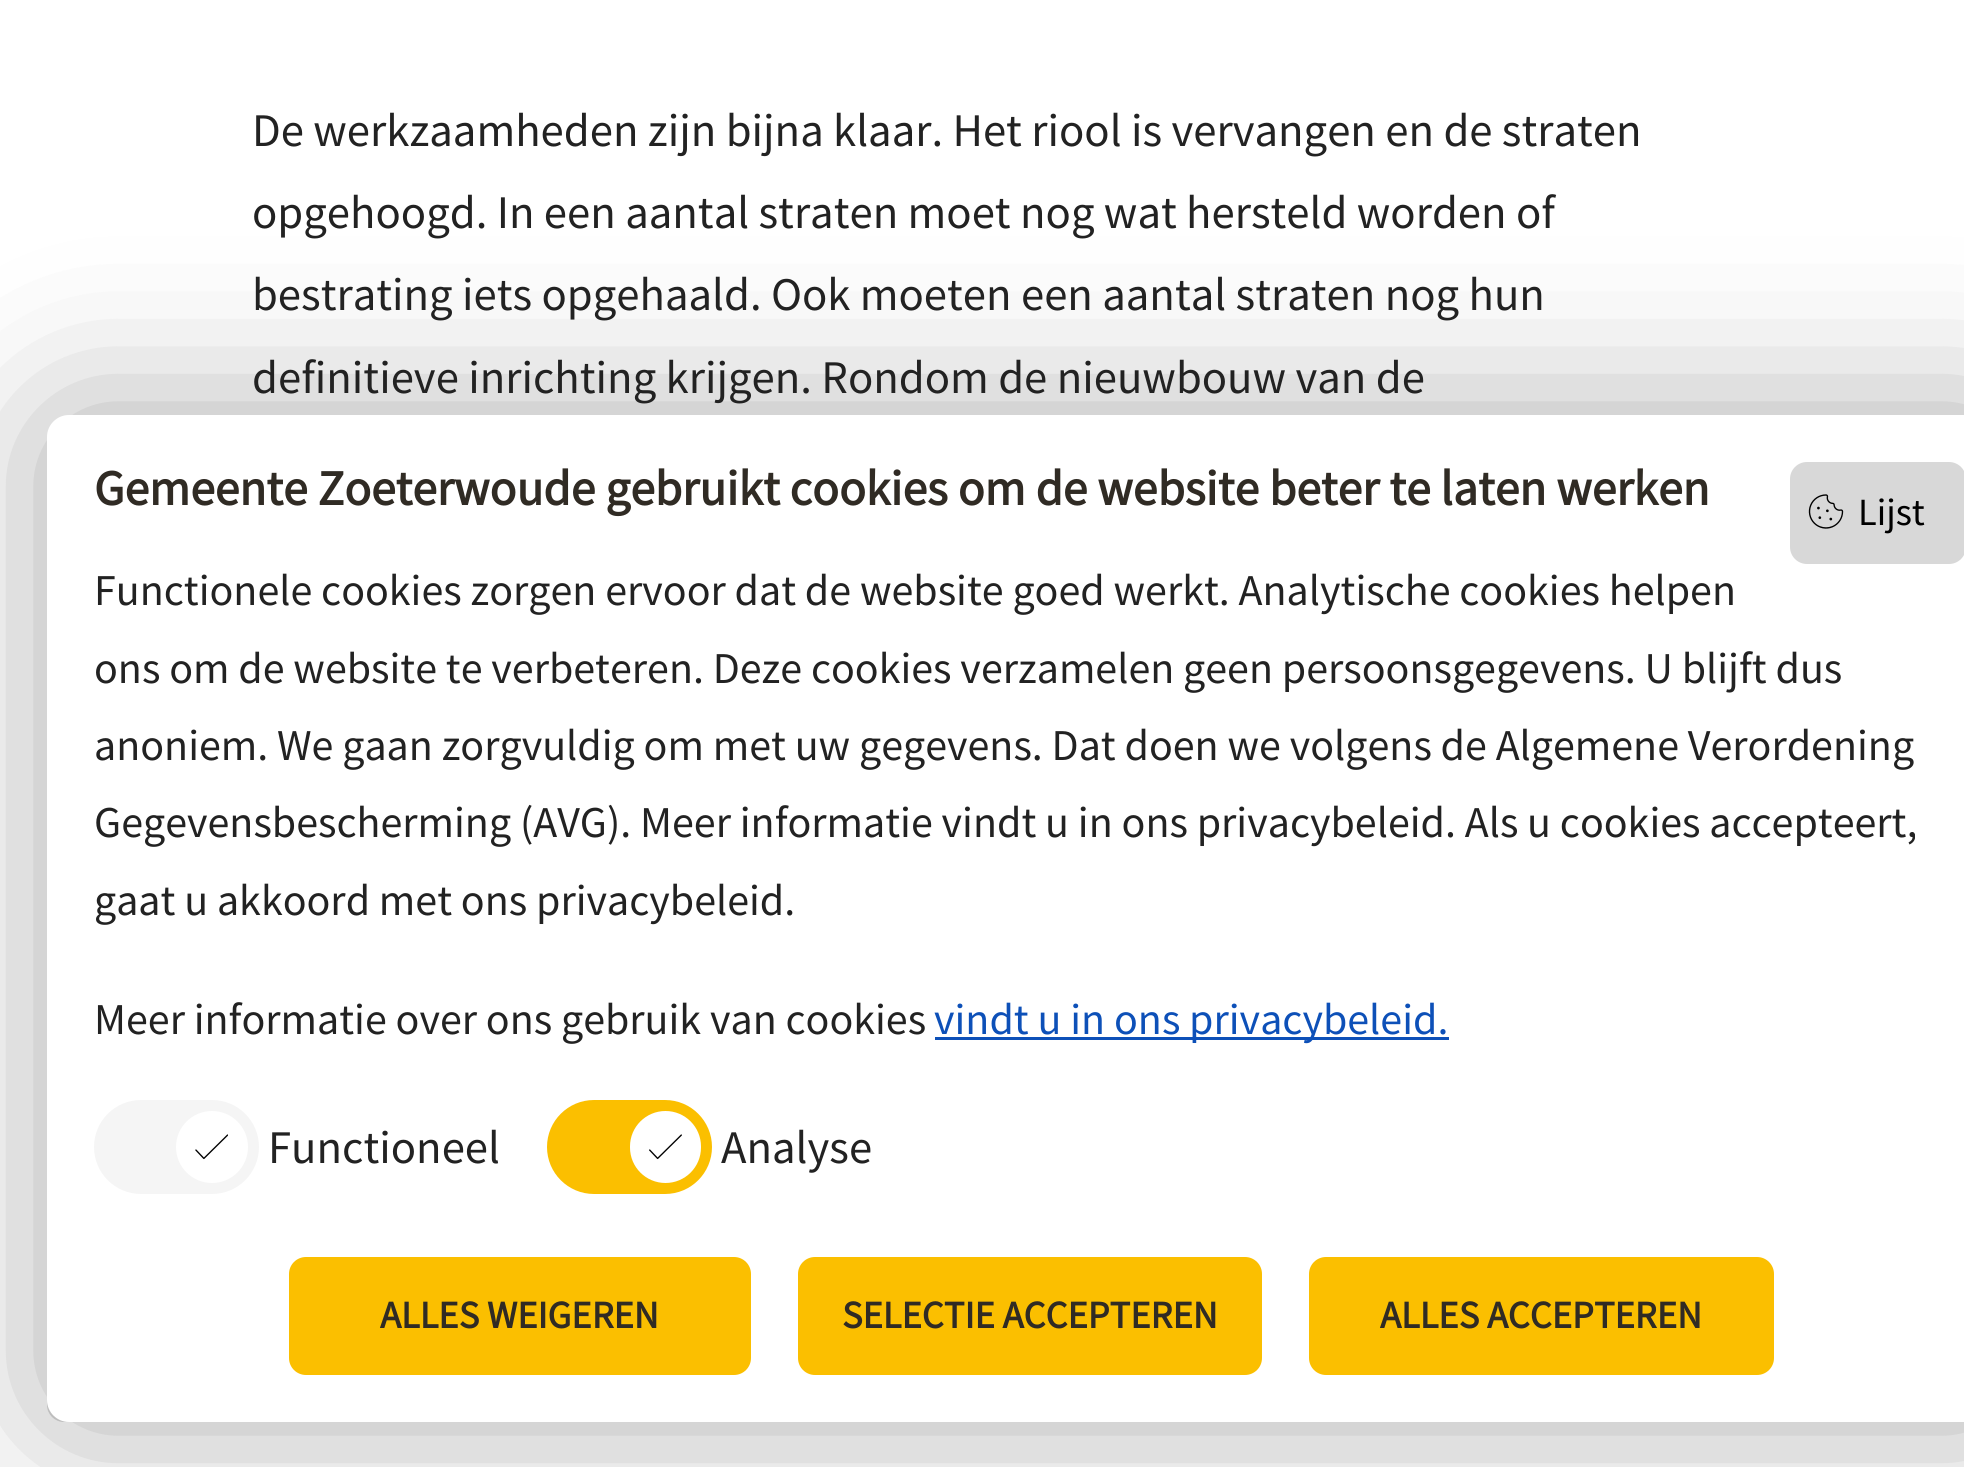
#include <cairo/cairo.h>
#include <math.h>
#include <stddef.h>

static cairo_t *cr;

static void use_color(int r, int g, int b) {
  cairo_set_source_rgb(cr, r / 255.0, g / 255.0, b / 255.0);
}

static void text(double x, double y, const char *s, const char *family, double size, int italic, int bold, int r, int g, int b) {
  cairo_select_font_face(cr, family, italic ? CAIRO_FONT_SLANT_ITALIC : CAIRO_FONT_SLANT_NORMAL,
    bold ? CAIRO_FONT_WEIGHT_BOLD : CAIRO_FONT_WEIGHT_NORMAL);
  cairo_set_font_size(cr, size);
  use_color(r, g, b);
  cairo_move_to(cr, x, y);
  cairo_show_text(cr, s);
}

static void box(double x, double y, double w, double h, int r, int g, int b) {
  use_color(r, g, b);
  cairo_rectangle(cr, x, y, w, h);
  cairo_fill(cr);
}

static void round_rect(double x, double y, double w, double h, double r) {
  cairo_new_sub_path(cr);
  cairo_arc(cr, x + w - r, y + h - r, r, 0, M_PI / 2);
  cairo_arc(cr, x + r, y + h - r, r, M_PI / 2, M_PI);
  cairo_arc(cr, x + r, y + r, r, M_PI, 1.5 * M_PI);
  cairo_arc(cr, x + w - r, y + r, r, 1.5 * M_PI, 2 * M_PI);
  cairo_close_path(cr);
}

static void shadow(double x, double y, double w, double h, double r, double blur, double alpha) {
  cairo_push_group_with_content(cr, CAIRO_CONTENT_ALPHA);
  cairo_set_operator(cr, CAIRO_OPERATOR_SOURCE);
  for (int i = 15; i >= -15 && fmin(w, h) + blur * i / 3 > 0; i -= 2) {
    double e = blur * i / 6;
    cairo_set_source_rgba(cr, 0, 0, 0, alpha * erfc((i - 1) / 8.5) / 2);
    round_rect(x - e, y - e, w + 2 * e, h + 2 * e, fmax(0, fmin(r + e + blur * .6, fmin(w, h) / 2 + e)));
    cairo_fill(cr);
  }
  cairo_pattern_t *soft = cairo_pop_group(cr);
  cairo_mask(cr, soft);
  cairo_pattern_destroy(soft);
}

static void picture(const char *path, double x, double y, double w, double h) {
  cairo_surface_t *image = cairo_image_surface_create_from_png(path);
  cairo_save(cr);
  cairo_set_source_surface(cr, image, x, y);
  cairo_rectangle(cr, x, y, w, h);
  cairo_fill(cr);
  cairo_restore(cr);
  cairo_surface_destroy(image);
}

static void draw(void) {
  use_color(255, 255, 255);
  cairo_paint(cr);
  round_rect(48.5, 1351.5, 134, 69, 15.5);
  use_color(216, 216, 216);
  cairo_set_line_width(cr, 3);
  cairo_stroke(cr);
  use_color(0, 0, 0);
  shadow(47, 415, 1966, 1007, 22, 82.5, 0.33);
  use_color(255, 255, 255);
  round_rect(47, 415, 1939, 1007, 22);
  cairo_fill(cr);
  use_color(216, 216, 216);
  round_rect(1790, 462, 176, 102, 17);
  cairo_fill(cr);
  picture("img_01.png", 1808, 494, 36, 35);
  box(935, 1037, 514, 3, 13, 80, 184);
  use_color(245, 245, 245);
  round_rect(94, 1100, 165, 94, 47);
  cairo_fill(cr);
  use_color(255, 255, 255);
  cairo_arc(cr, 212, 1147, 36, 0, 2 * M_PI);
  cairo_fill(cr);
  picture("img_02.png", 195, 1134, 33, 26);
  use_color(251, 191, 0);
  round_rect(547, 1100, 165, 94, 47);
  cairo_fill(cr);
  use_color(255, 255, 255);
  round_rect(630, 1111, 71, 72, 35.5);
  cairo_fill(cr);
  picture("img_03.png", 649, 1134, 33, 26);
  use_color(251, 191, 0);
  round_rect(289, 1257, 462, 118, 17);
  cairo_fill(cr);
  round_rect(798, 1257, 464, 118, 17);
  cairo_fill(cr);
  round_rect(1309, 1257, 465, 118, 17);
  cairo_fill(cr);
  text(252, 146, "De werkzaamheden zijn bijna klaar. Het riool is vervangen en de straten", "Source Sans Pro", 46.75, 0, 0, 34, 34, 34);
  text(252, 228, "opgehoogd. In een aantal straten moet nog wat hersteld worden of", "Source Sans Pro", 46.75, 0, 0, 34, 34, 34);
  text(252, 310, "bestrating iets opgehaald. Ook moeten een aantal straten nog hun", "Source Sans Pro", 46.75, 0, 0, 34, 34, 34);
  text(252, 393, "definitieve inrichting krijgen. Rondom de nieuwbouw van de", "Source Sans Pro", 46.75, 0, 0, 34, 34, 34);
  text(94, 505, "Gemeente Zoeterwoude gebruikt cookies om de website beter te laten werken", "Source Sans Pro", 49.5, 0, 1, 48, 43, 36);
  text(1858, 525, "Lijst", "Source Sans Pro", 38.5, 0, 0, 0, 0, 0);
  text(94, 605, "Functionele cookies zorgen ervoor dat de website goed werkt. Analytische cookies helpen", "Source Sans Pro", 44, 0, 0, 34, 34, 34);
  text(94, 683, "ons om de website te verbeteren. Deze cookies verzamelen geen persoonsgegevens. U blijft dus", "Source Sans Pro", 44, 0, 0, 34, 34, 34);
  text(94, 760, "anoniem. We gaan zorgvuldig om met uw gegevens. Dat doen we volgens de Algemene Verordening", "Source Sans Pro", 44, 0, 0, 34, 34, 34);
  text(94, 837, "Gegevensbescherming (AVG). Meer informatie vindt u in ons privacybeleid. Als u cookies accepteert,", "Source Sans Pro", 44, 0, 0, 34, 34, 34);
  text(94, 915, "gaat u akkoord met ons privacybeleid.", "Source Sans Pro", 44, 0, 0, 34, 34, 34);
  text(94, 1034, "Meer informatie over ons gebruik van cookies", "Source Sans Pro", 44, 0, 0, 34, 34, 34);
  text(934, 1034, "vindt u in ons privacybeleid.", "Source Sans Pro", 44, 0, 0, 13, 80, 184);
  text(268, 1163, "Functioneel", "Source Sans Pro", 46.75, 0, 0, 34, 34, 34);
  text(721, 1163, "Analyse", "Source Sans Pro", 46.75, 0, 0, 34, 34, 34);
  text(380, 1328, "ALLES WEIGEREN", "Source Sans Pro", 38.5, 0, 1, 48, 43, 36);
  text(842, 1328, "SELECTIE ACCEPTEREN", "Source Sans Pro", 38.5, 0, 1, 48, 43, 36);
  text(1380, 1328, "ALLES ACCEPTEREN", "Source Sans Pro", 38.5, 0, 1, 48, 43, 36);
}

int main(void) {
  cairo_surface_t *surface = cairo_image_surface_create(CAIRO_FORMAT_RGB24, 1964, 1467);
  cr = cairo_create(surface);
  cairo_font_options_t *options = cairo_font_options_create();
  cairo_font_options_set_hint_metrics(options, CAIRO_HINT_METRICS_OFF);
  cairo_font_options_set_hint_style(options, CAIRO_HINT_STYLE_NONE);
  cairo_set_font_options(cr, options);
  cairo_set_miter_limit(cr, 4);
  draw();
  cairo_surface_write_to_png(surface, "out.png");
  cairo_font_options_destroy(options);
  cairo_destroy(cr);
  cairo_surface_destroy(surface);
  return 0;
}
